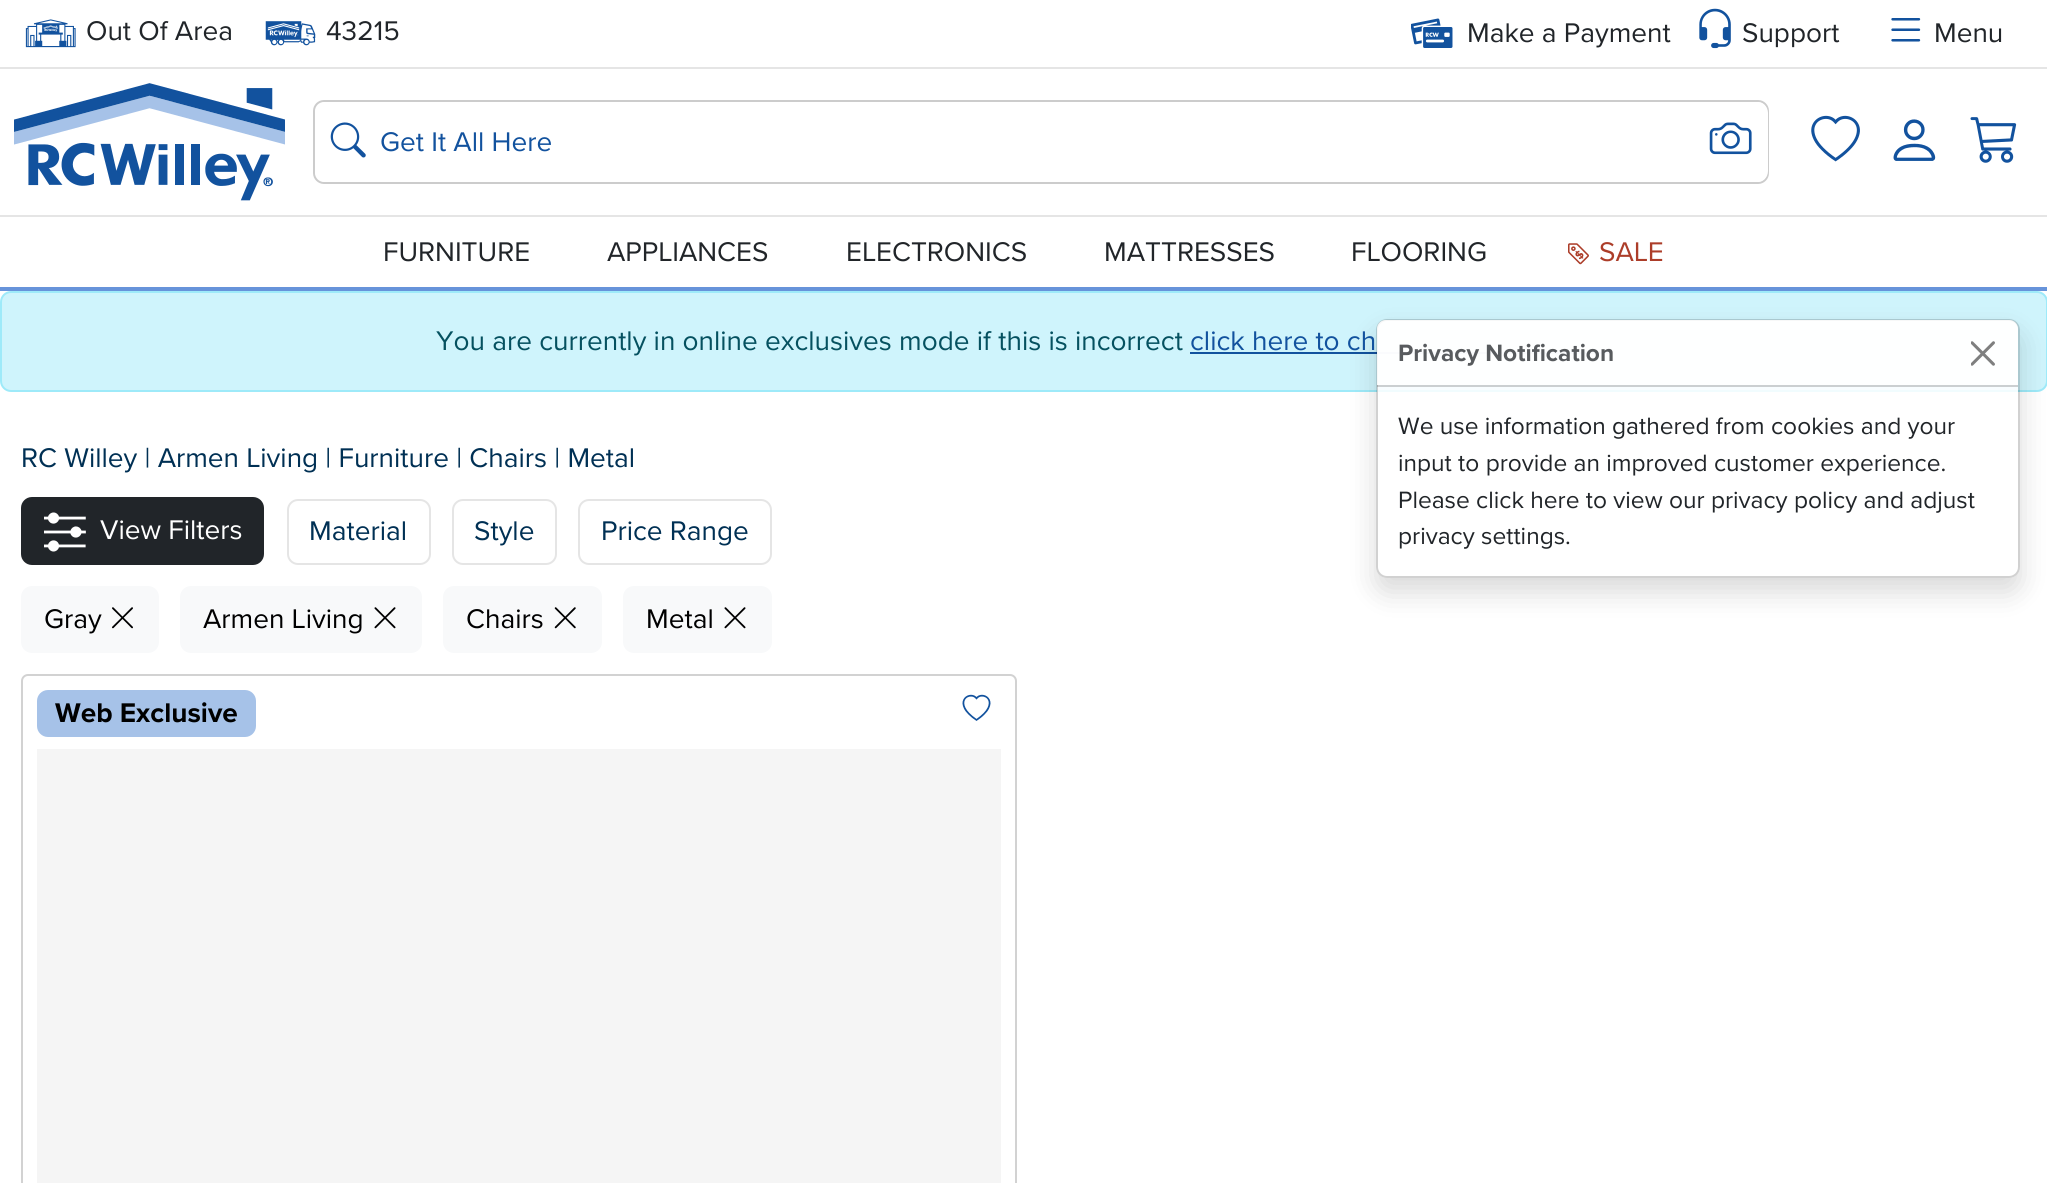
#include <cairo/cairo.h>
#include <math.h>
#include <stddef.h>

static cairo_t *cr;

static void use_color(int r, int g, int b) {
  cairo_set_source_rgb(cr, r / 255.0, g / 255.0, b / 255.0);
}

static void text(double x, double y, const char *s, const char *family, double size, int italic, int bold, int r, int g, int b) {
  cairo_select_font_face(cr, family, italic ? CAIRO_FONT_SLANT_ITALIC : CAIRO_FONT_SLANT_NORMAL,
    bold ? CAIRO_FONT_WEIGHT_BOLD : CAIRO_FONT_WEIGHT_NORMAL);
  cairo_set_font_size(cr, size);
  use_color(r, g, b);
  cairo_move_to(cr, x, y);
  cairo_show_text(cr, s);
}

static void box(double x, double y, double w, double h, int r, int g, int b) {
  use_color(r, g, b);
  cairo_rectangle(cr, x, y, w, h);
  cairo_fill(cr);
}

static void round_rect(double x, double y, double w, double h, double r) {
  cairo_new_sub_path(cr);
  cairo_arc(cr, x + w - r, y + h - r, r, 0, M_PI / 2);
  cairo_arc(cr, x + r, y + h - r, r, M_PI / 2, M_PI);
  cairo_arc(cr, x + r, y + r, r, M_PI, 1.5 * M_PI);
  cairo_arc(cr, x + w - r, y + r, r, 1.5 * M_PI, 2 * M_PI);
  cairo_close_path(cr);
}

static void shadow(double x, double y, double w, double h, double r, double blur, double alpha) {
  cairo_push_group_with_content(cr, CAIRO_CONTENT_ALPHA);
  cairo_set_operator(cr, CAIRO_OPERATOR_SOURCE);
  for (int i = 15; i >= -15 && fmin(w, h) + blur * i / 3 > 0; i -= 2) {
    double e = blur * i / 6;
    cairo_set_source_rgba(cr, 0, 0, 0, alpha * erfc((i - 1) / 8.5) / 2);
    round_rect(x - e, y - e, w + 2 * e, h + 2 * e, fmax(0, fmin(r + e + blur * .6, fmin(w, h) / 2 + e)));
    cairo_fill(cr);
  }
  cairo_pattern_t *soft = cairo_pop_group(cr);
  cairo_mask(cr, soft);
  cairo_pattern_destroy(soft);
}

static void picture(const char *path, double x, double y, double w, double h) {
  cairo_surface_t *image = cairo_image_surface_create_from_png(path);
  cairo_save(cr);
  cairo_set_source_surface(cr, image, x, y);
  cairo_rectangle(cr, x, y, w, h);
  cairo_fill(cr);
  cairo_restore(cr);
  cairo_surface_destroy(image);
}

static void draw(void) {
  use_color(255, 255, 255);
  cairo_paint(cr);
  box(0, 287, 2047, 4, 103, 147, 218);
  picture("img_01.png", 25, 19, 51, 29);
  picture("img_02.png", 265, 21, 51, 25);
  picture("img_03.png", 1411, 18, 42, 30);
  picture("img_04.png", 1699, 8, 32, 41);
  picture("img_05.png", 1891, 18, 30, 24);
  box(0, 67, 2047, 2, 229, 229, 229);
  box(0, 215, 2047, 2, 229, 229, 229);
  picture("img_06.png", 14, 83, 271, 118);
  round_rect(314, 101, 1454, 82, 10);
  use_color(204, 204, 204);
  cairo_stroke(cr);
  use_color(255, 255, 255);
  round_rect(315, 102, 1453, 80, 11);
  cairo_fill(cr);
  picture("img_07.png", 330, 122, 36, 36);
  picture("img_08.png", 1709, 122, 43, 33);
  picture("img_09.png", 1811, 115, 49, 47);
  picture("img_10.png", 1893, 119, 43, 42);
  picture("img_11.png", 1970, 117, 47, 46);
  picture("img_12.png", 1568, 243, 21, 22);
  use_color(33, 37, 41);
  round_rect(22, 498, 241, 66, 10);
  cairo_fill_preserve(cr);
  cairo_stroke(cr);
  picture("img_13.png", 44, 512, 42, 40);
  round_rect(288, 500, 142, 64, 10);
  use_color(229, 229, 229);
  cairo_stroke(cr);
  round_rect(453, 500, 103, 64, 10);
  cairo_stroke(cr);
  round_rect(579, 500, 192, 64, 10);
  cairo_stroke(cr);
  use_color(248, 249, 250);
  round_rect(21, 586, 138, 67, 11);
  cairo_fill(cr);
  picture("img_14.png", 112, 607, 21, 22);
  round_rect(180, 586, 242, 67, 11);
  cairo_fill(cr);
  picture("img_15.png", 374, 607, 22, 22);
  round_rect(443, 586, 159, 67, 11);
  cairo_fill(cr);
  picture("img_16.png", 554, 607, 22, 22);
  round_rect(623, 586, 149, 67, 11);
  cairo_fill(cr);
  picture("img_15.png", 724, 607, 22, 22);
  round_rect(22, 675, 994, 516, 6);
  use_color(210, 210, 210);
  cairo_stroke(cr);
  use_color(166, 194, 232);
  round_rect(37, 690, 219, 47, 11);
  cairo_fill(cr);
  picture("img_17.png", 962, 694, 29, 27);
  box(37, 749, 964, 434, 245, 245, 245);
  use_color(207, 244, 252);
  round_rect(1, 292, 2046, 99, 10);
  cairo_fill_preserve(cr);
  use_color(158, 234, 249);
  cairo_stroke(cr);
  box(1190, 352, 422, 2, 18, 82, 158);
  cairo_save(cr);
  cairo_set_fill_rule(cr, CAIRO_FILL_RULE_EVEN_ODD);
  cairo_new_path(cr);
  cairo_move_to(cr, 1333, 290);
  cairo_line_to(cr, 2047, 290);
  cairo_line_to(cr, 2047, 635);
  cairo_line_to(cr, 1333, 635);
  cairo_close_path(cr);
  cairo_move_to(cr, 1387, 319);
  cairo_line_to(cr, 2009, 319);
  cairo_curve_to(cr, 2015, 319, 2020, 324, 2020, 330);
  cairo_line_to(cr, 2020, 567);
  cairo_curve_to(cr, 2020, 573, 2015, 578, 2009, 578);
  cairo_line_to(cr, 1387, 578);
  cairo_curve_to(cr, 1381, 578, 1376, 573, 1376, 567);
  cairo_line_to(cr, 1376, 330);
  cairo_curve_to(cr, 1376, 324, 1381, 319, 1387, 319);
  cairo_close_path(cr);
  cairo_clip(cr);
  use_color(0, 0, 0);
  shadow(1376, 333, 644, 259, 11, 14, 0.15);
  cairo_restore(cr);
  cairo_set_source_rgba(cr, 1, 1, 1, 0.85);
  round_rect(1377, 320, 641, 256, 9);
  cairo_fill(cr);
  round_rect(1377, 320, 642, 257, 10);
  cairo_set_source_rgba(cr, 0, 0, 0, 0.18);
  cairo_stroke(cr);
  cairo_set_source_rgba(cr, 1, 1, 1, 0.85);
  cairo_new_path(cr);
  cairo_move_to(cr, 1386, 320);
  cairo_line_to(cr, 2009, 320);
  cairo_curve_to(cr, 2014, 320, 2018, 324, 2018, 329);
  cairo_line_to(cr, 2018, 385);
  cairo_line_to(cr, 1377, 385);
  cairo_line_to(cr, 1377, 329);
  cairo_curve_to(cr, 1377, 324, 1381, 320, 1386, 320);
  cairo_close_path(cr);
  cairo_fill(cr);
  cairo_set_source_rgba(cr, 0, 0, 0, 0.18);
  cairo_rectangle(cr, 1377, 385, 641, 2);
  cairo_fill(cr);
  picture("img_18.png", 1971, 341, 24, 25);
  text(86, 40, "Out Of Area", "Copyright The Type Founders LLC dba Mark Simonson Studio", 28, 0, 0, 33, 37, 41);
  text(326, 40, "43215", "Copyright The Type Founders LLC dba Mark Simonson Studio", 28, 0, 0, 33, 37, 41);
  text(1467, 42, "Make a Payment", "Copyright The Type Founders LLC dba Mark Simonson Studio", 28, 0, 0, 33, 37, 41);
  text(1742, 42, "Support", "Copyright The Type Founders LLC dba Mark Simonson Studio", 28, 0, 0, 33, 37, 41);
  text(1934, 42, "Menu", "Copyright The Type Founders LLC dba Mark Simonson Studio", 28, 0, 0, 33, 37, 41);
  text(380, 151, "Get It All Here", "Copyright The Type Founders LLC dba Mark Simonson Studio", 28, 0, 0, 18, 82, 158);
  text(383, 261, "FURNITURE", "Copyright The Type Founders LLC dba Mark Simonson Studio", 28, 0, 0, 33, 37, 41);
  text(607, 261, "APPLIANCES", "Copyright The Type Founders LLC dba Mark Simonson Studio", 28, 0, 0, 33, 37, 41);
  text(846, 261, "ELECTRONICS", "Copyright The Type Founders LLC dba Mark Simonson Studio", 28, 0, 0, 33, 37, 41);
  text(1104, 261, "MATTRESSES", "Copyright The Type Founders LLC dba Mark Simonson Studio", 28, 0, 0, 33, 37, 41);
  text(1351, 261, "FLOORING", "Copyright The Type Founders LLC dba Mark Simonson Studio", 28, 0, 0, 33, 37, 41);
  text(1599, 261, "SALE", "Copyright The Type Founders LLC dba Mark Simonson Studio", 28, 0, 0, 172, 61, 41);
  text(21, 467, "RC Willey | Armen Living | Furniture | Chairs | Metal", "Copyright The Type Founders LLC dba Mark Simonson Studio", 28, 0, 0, 0, 48, 84);
  text(100, 539, "View Filters", "Copyright The Type Founders LLC dba Mark Simonson Studio", 28, 0, 0, 255, 255, 255);
  text(309, 540, "Material", "Copyright The Type Founders LLC dba Mark Simonson Studio", 28, 0, 0, 0, 48, 84);
  text(474, 540, "Style", "Copyright The Type Founders LLC dba Mark Simonson Studio", 28, 0, 0, 0, 48, 84);
  text(601, 540, "Price Range", "Copyright The Type Founders LLC dba Mark Simonson Studio", 28, 0, 0, 0, 48, 84);
  text(44, 628, "Gray", "Copyright The Type Founders LLC dba Mark Simonson Studio", 28, 0, 0, 0, 0, 0);
  text(203, 628, "Armen Living", "Copyright The Type Founders LLC dba Mark Simonson Studio", 28, 0, 0, 0, 0, 0);
  text(466, 628, "Chairs", "Copyright The Type Founders LLC dba Mark Simonson Studio", 28, 0, 0, 0, 0, 0);
  text(646, 628, "Metal", "Copyright The Type Founders LLC dba Mark Simonson Studio", 28, 0, 0, 0, 0, 0);
  text(55, 722, "Web Exclusive", "Copyright The Type Founders LLC dba Mark Simonson Studio", 28, 0, 1, 0, 0, 0);
  text(436, 350, "You are currently in online exclusives mode if this is incorrect", "Copyright The Type Founders LLC dba Mark Simonson Studio", 28, 0, 0, 5, 81, 96);
  text(1190, 350, "click here to ch", "Copyright The Type Founders LLC dba Mark Simonson Studio", 28, 0, 0, 18, 82, 158);
  text(1398, 361, "Privacy Notification", "Copyright The Type Founders LLC dba Mark Simonson Studio", 24.5, 0, 1, 88, 91, 94);
  text(1398, 434, "We use information gathered from cookies and your", "Copyright The Type Founders LLC dba Mark Simonson Studio", 24.5, 0, 0, 33, 37, 41);
  text(1398, 471, "input to provide an improved customer experience.", "Copyright The Type Founders LLC dba Mark Simonson Studio", 24.5, 0, 0, 33, 37, 41);
  text(1398, 508, "Please click here to view our privacy policy and adjust", "Copyright The Type Founders LLC dba Mark Simonson Studio", 24.5, 0, 0, 33, 37, 41);
  text(1398, 544, "privacy settings.", "Copyright The Type Founders LLC dba Mark Simonson Studio", 24.5, 0, 0, 33, 37, 41);
}

int main(void) {
  cairo_surface_t *surface = cairo_image_surface_create(CAIRO_FORMAT_RGB24, 2047, 1183);
  cr = cairo_create(surface);
  cairo_font_options_t *options = cairo_font_options_create();
  cairo_font_options_set_hint_metrics(options, CAIRO_HINT_METRICS_OFF);
  cairo_font_options_set_hint_style(options, CAIRO_HINT_STYLE_NONE);
  cairo_set_font_options(cr, options);
  cairo_set_miter_limit(cr, 4);
  draw();
  cairo_surface_write_to_png(surface, "out.png");
  cairo_font_options_destroy(options);
  cairo_destroy(cr);
  cairo_surface_destroy(surface);
  return 0;
}
